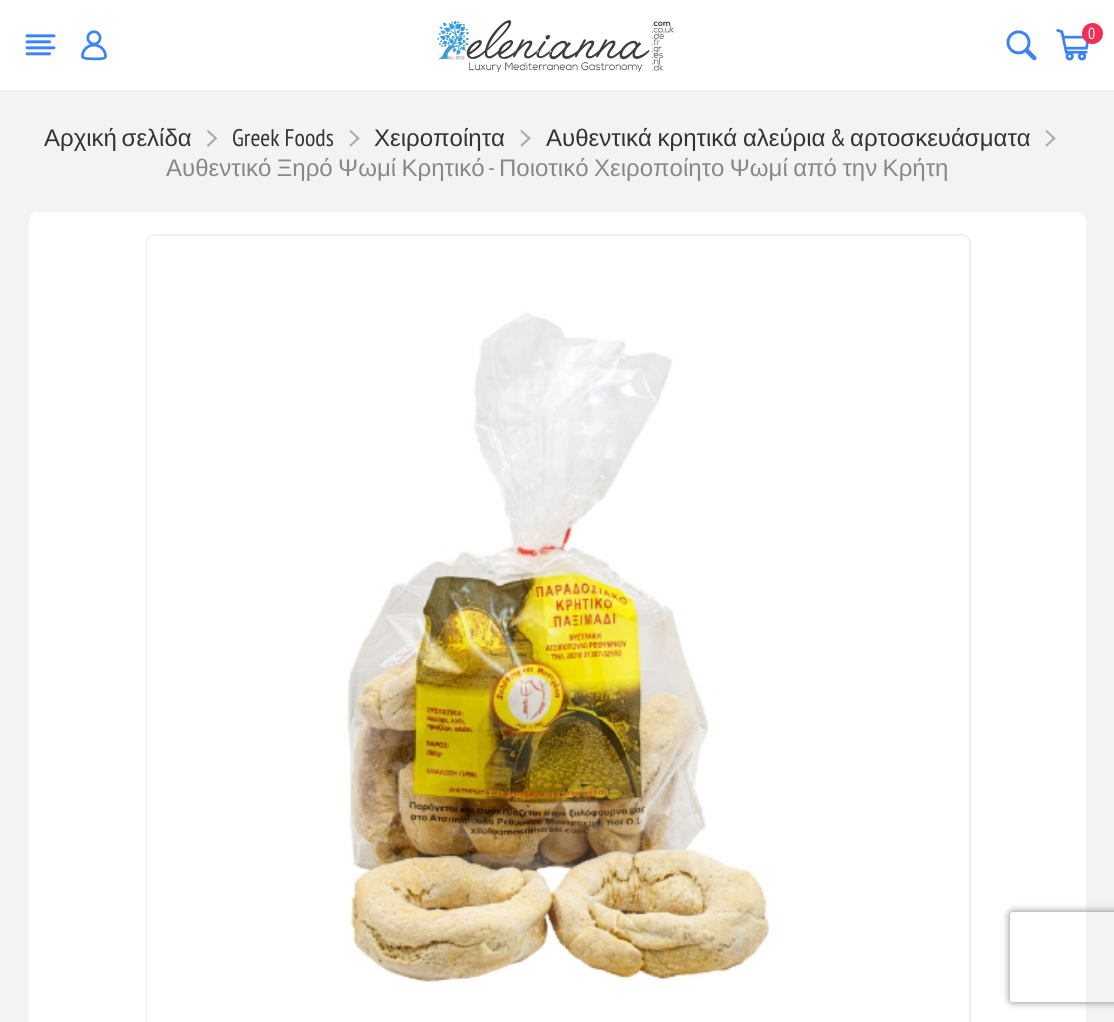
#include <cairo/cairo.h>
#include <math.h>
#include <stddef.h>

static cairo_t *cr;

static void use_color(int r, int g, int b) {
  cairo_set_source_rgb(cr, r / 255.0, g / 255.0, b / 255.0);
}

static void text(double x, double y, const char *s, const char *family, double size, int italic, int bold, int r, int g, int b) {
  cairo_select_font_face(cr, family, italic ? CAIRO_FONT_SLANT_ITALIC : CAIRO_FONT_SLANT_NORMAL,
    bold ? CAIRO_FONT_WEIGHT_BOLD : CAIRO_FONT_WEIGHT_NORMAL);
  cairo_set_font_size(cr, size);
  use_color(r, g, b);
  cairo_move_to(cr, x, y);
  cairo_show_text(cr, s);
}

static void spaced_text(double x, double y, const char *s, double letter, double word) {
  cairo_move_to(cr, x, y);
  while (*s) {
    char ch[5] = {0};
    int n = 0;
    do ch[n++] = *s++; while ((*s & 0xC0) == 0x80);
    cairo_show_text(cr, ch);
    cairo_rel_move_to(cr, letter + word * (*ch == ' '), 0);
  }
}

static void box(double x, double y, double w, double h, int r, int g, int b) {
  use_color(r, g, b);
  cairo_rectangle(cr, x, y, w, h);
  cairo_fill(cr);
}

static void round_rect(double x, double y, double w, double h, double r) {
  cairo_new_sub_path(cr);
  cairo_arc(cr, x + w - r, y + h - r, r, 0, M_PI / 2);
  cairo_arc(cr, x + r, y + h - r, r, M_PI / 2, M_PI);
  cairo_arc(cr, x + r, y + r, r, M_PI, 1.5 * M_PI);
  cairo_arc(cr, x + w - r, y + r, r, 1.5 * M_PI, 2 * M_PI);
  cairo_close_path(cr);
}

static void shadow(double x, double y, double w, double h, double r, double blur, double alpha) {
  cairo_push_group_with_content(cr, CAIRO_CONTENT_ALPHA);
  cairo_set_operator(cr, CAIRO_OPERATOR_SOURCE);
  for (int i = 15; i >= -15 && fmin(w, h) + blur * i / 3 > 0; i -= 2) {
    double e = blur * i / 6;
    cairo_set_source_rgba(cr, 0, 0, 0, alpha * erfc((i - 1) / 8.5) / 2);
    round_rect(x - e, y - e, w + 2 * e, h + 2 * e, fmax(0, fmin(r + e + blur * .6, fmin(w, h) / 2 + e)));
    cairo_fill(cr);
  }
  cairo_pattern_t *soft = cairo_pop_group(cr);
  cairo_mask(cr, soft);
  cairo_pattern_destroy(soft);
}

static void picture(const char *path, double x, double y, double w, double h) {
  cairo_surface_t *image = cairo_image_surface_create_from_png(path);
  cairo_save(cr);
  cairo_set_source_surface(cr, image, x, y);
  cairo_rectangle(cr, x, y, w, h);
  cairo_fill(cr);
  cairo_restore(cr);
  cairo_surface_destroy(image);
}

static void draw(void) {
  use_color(243, 243, 243);
  cairo_paint(cr);
  box(0, 0, 1114, 90, 255, 255, 255);
  picture("img_01.png", 25, 34, 31, 22);
  picture("img_02.png", 81, 30, 26, 31);
  picture("img_03.png", 436, 20, 238, 52);
  picture("img_04.png", 1006, 30, 31, 31);
  picture("img_05.png", 1056, 29, 33, 32);
  use_color(242, 45, 86);
  cairo_arc(cr, 1092.5, 33.5, 10.5, 0, 2 * M_PI);
  cairo_fill(cr);
  picture("img_06.png", 207, 130, 11, 17);
  picture("img_07.png", 349, 130, 11, 17);
  picture("img_07.png", 520, 130, 11, 17);
  picture("img_07.png", 1045, 130, 11, 17);
  use_color(255, 255, 255);
  round_rect(29, 212, 1057, 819, 9);
  cairo_fill(cr);
  round_rect(147, 235, 823, 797, 8);
  use_color(238, 238, 238);
  cairo_stroke(cr);
  picture("img_08.png", 147, 235, 820, 787);
  cairo_save(cr);
  cairo_set_fill_rule(cr, CAIRO_FILL_RULE_EVEN_ODD);
  cairo_new_path(cr);
  cairo_move_to(cr, 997, 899);
  cairo_line_to(cr, 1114, 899);
  cairo_line_to(cr, 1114, 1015);
  cairo_line_to(cr, 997, 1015);
  cairo_close_path(cr);
  cairo_move_to(cr, 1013, 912);
  cairo_line_to(cr, 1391, 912);
  cairo_curve_to(cr, 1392.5, 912, 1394, 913.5, 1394, 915);
  cairo_line_to(cr, 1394, 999);
  cairo_curve_to(cr, 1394, 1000.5, 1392.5, 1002, 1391, 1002);
  cairo_line_to(cr, 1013, 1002);
  cairo_curve_to(cr, 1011.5, 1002, 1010, 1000.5, 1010, 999);
  cairo_line_to(cr, 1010, 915);
  cairo_curve_to(cr, 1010, 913.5, 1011.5, 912, 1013, 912);
  cairo_close_path(cr);
  cairo_clip(cr);
  use_color(128, 128, 128);
  shadow(1010, 912, 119, 90, 3, 4, 1);
  cairo_restore(cr);
  text(1088, 39, "0", "PT Sans Narrow", 16, 0, 0, 255, 255, 255);
  cairo_select_font_face(cr, "Liberation Sans", CAIRO_FONT_SLANT_NORMAL, CAIRO_FONT_WEIGHT_NORMAL);
  cairo_set_font_size(cr, 24);
  use_color(51, 51, 51);
  spaced_text(44, 146, "Αρχική σελίδα", 0, -2);
  text(232, 146, "Greek Foods", "PT Sans Narrow", 24, 0, 0, 51, 51, 51);
  text(374, 146, "Χειροποίητα", "Liberation Sans", 24, 0, 0, 51, 51, 51);
  spaced_text(546, 146, "Αυθεντικά κρητικά αλεύρια", 0, -1);
  text(830, 146, "&", "PT Sans Narrow", 24, 0, 0, 51, 51, 51);
  text(850, 146, "αρτοσκευάσματα", "Liberation Sans", 24, 0, 0, 51, 51, 51);
  use_color(136, 136, 136);
  spaced_text(166, 176, "Αυθεντικό Ξηρό Ψωμί Κρητικό", 0, -1.25);
  text(488, 176, "-", "PT Sans Narrow", 24, 0, 0, 136, 136, 136);
  cairo_select_font_face(cr, "Liberation Sans", CAIRO_FONT_SLANT_NORMAL, CAIRO_FONT_WEIGHT_NORMAL);
  spaced_text(499, 176, "Ποιοτικό Χειροποίητο Ψωμί από την Κρήτη", 0, -1.25);
}

int main(void) {
  cairo_surface_t *surface = cairo_image_surface_create(CAIRO_FORMAT_RGB24, 1114, 1022);
  cr = cairo_create(surface);
  cairo_font_options_t *options = cairo_font_options_create();
  cairo_font_options_set_hint_metrics(options, CAIRO_HINT_METRICS_OFF);
  cairo_font_options_set_hint_style(options, CAIRO_HINT_STYLE_NONE);
  cairo_set_font_options(cr, options);
  cairo_set_miter_limit(cr, 4);
  draw();
  cairo_surface_write_to_png(surface, "out.png");
  cairo_font_options_destroy(options);
  cairo_destroy(cr);
  cairo_surface_destroy(surface);
  return 0;
}
